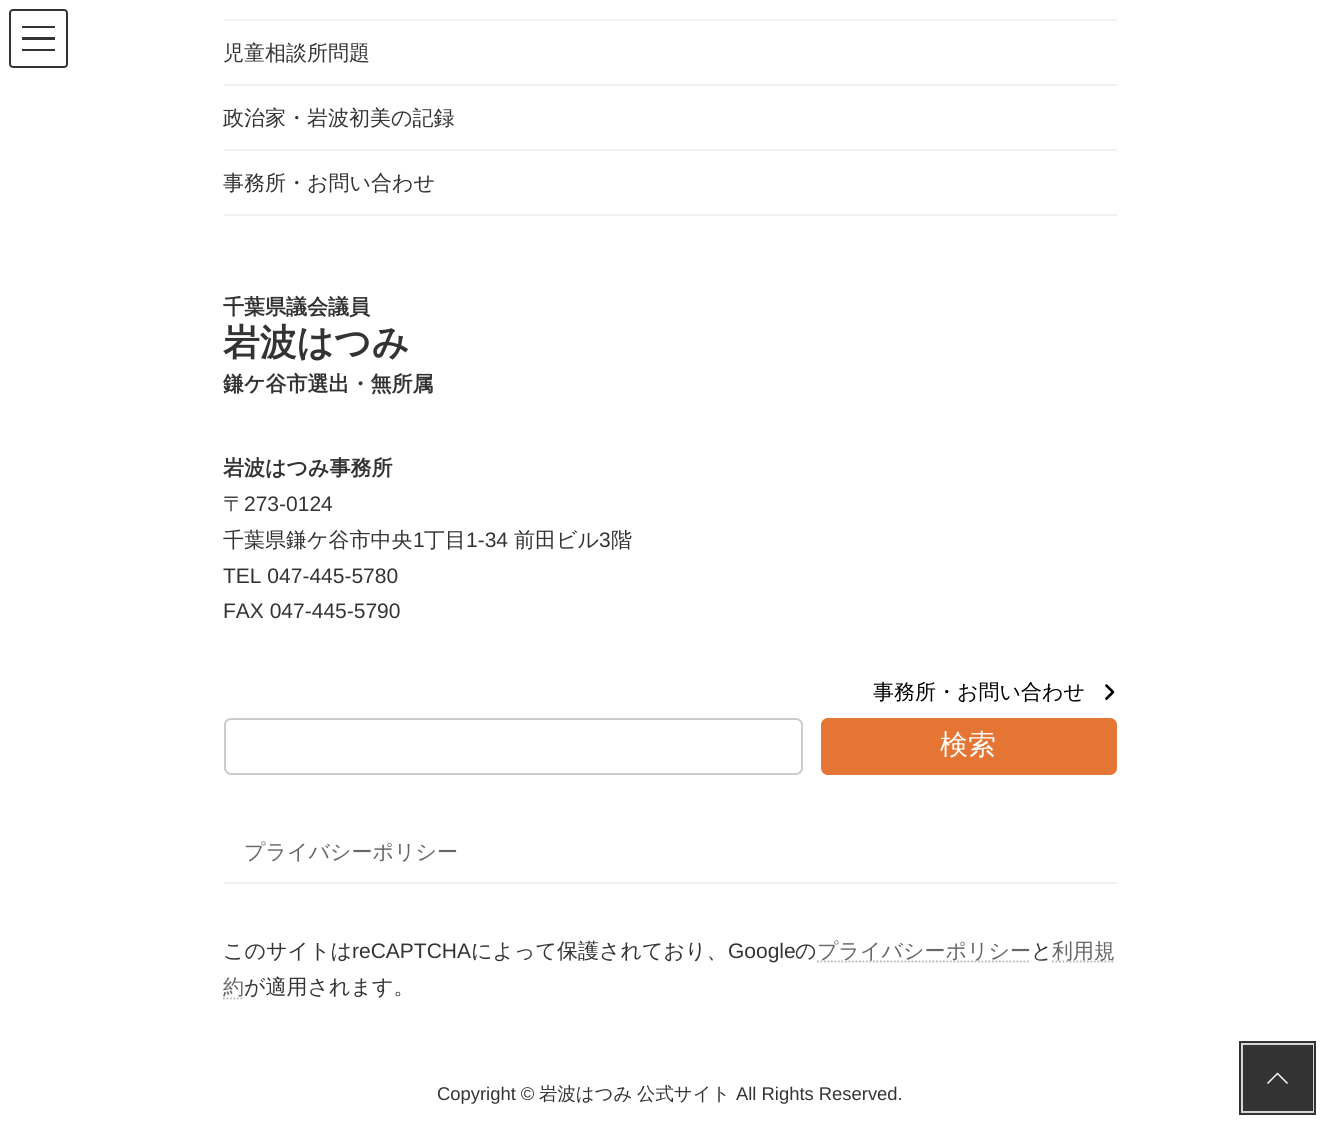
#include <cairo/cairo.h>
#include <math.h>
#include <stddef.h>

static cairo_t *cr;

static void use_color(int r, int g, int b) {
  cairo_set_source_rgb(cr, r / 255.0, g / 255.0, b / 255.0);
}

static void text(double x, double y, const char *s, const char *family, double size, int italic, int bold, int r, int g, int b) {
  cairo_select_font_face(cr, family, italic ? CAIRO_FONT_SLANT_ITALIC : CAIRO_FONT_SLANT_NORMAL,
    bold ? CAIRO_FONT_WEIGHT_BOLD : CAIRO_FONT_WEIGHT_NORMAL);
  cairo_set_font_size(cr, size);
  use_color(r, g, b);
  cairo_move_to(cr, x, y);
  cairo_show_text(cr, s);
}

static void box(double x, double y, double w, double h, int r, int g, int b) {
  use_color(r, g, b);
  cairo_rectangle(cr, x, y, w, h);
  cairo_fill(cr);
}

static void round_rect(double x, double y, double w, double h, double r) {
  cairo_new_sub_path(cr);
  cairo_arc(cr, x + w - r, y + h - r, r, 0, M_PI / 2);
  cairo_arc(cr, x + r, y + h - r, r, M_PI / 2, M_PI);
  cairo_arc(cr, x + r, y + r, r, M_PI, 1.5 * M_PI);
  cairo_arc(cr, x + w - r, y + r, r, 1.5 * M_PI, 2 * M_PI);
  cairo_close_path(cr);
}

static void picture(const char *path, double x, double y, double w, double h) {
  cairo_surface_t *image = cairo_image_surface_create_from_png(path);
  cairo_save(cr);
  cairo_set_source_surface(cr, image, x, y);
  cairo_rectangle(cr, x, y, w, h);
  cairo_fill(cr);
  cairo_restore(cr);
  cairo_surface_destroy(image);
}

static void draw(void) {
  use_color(255, 255, 255);
  cairo_paint(cr);
  box(22, 26, 33, 2, 51, 51, 51);
  box(22, 37, 33, 3, 51, 51, 51);
  box(22, 49, 33, 2, 51, 51, 51);
  round_rect(10, 10, 57, 57, 3);
  cairo_stroke(cr);
  box(224, 19, 893, 2, 240, 240, 240);
  box(224, 84, 893, 2, 240, 240, 240);
  box(224, 149, 893, 2, 240, 240, 240);
  box(224, 214, 893, 2, 240, 240, 240);
  picture("img_01.png", 1105, 684, 10, 16);
  round_rect(225, 719, 577, 55, 6);
  use_color(204, 204, 204);
  cairo_stroke(cr);
  use_color(229, 117, 52);
  round_rect(821, 718, 296, 57, 7);
  cairo_fill(cr);
  box(224, 882, 893, 2, 240, 240, 240);
  cairo_new_path(cr);
  cairo_move_to(cr, 817, 961.5);
  cairo_line_to(cr, 1030.5, 961.5);
  use_color(179, 179, 179);
  cairo_set_line_width(cr, 1.8);
  cairo_set_dash(cr, (double[]){1.75, 1.75}, 2, 0);
  cairo_stroke(cr);
  cairo_new_path(cr);
  cairo_move_to(cr, 1052, 961.5);
  cairo_line_to(cr, 1115, 961.5);
  cairo_stroke(cr);
  cairo_new_path(cr);
  cairo_move_to(cr, 223, 998.5);
  cairo_line_to(cr, 244, 998.5);
  cairo_stroke(cr);
  cairo_rectangle(cr, 1241, 1043, 73, 70);
  use_color(51, 51, 51);
  cairo_set_line_width(cr, 4);
  cairo_set_dash(cr, NULL, 0, 0);
  cairo_stroke(cr);
  cairo_rectangle(cr, 1242, 1044, 71, 68);
  use_color(214, 214, 214);
  cairo_set_line_width(cr, 2);
  cairo_stroke(cr);
  cairo_set_source_rgba(cr, 0, 0, 0, 0.8);
  cairo_rectangle(cr, 1243, 1045, 70, 66);
  cairo_fill(cr);
  use_color(255, 255, 255);
  cairo_new_path(cr);
  cairo_move_to(cr, 1288, 1083);
  cairo_line_to(cr, 1287, 1084);
  cairo_line_to(cr, 1277.5, 1074.5);
  cairo_line_to(cr, 1268, 1084);
  cairo_line_to(cr, 1267, 1083);
  cairo_line_to(cr, 1277.5, 1072.5);
  cairo_close_path(cr);
  cairo_fill(cr);
  text(223, 60, "児童相談所問題", "WenQuanYi Zen Hei Medium", 21, 0, 0, 51, 51, 51);
  text(223, 125, "政治家・岩波初美の記録", "WenQuanYi Zen Hei Medium", 21, 0, 0, 51, 51, 51);
  text(223, 190, "事務所・お問い合わせ", "WenQuanYi Zen Hei Medium", 21, 0, 0, 51, 51, 51);
  text(223, 314, "千葉県議会議員", "WenQuanYi Zen Hei", 21, 0, 1, 51, 51, 51);
  text(223, 355, "岩波はつみ", "WenQuanYi Zen Hei", 36.75, 0, 1, 51, 51, 51);
  text(223, 391, "鎌ケ谷市選出・無所属", "WenQuanYi Zen Hei", 21, 0, 1, 51, 51, 51);
  text(223, 475, "岩波はつみ事務所", "WenQuanYi Zen Hei", 21, 0, 1, 51, 51, 51);
  text(223, 511, "〒", "WenQuanYi Zen Hei Medium", 21, 0, 0, 51, 51, 51);
  text(244, 511, "273-0124", "Liberation Sans", 21, 0, 0, 51, 51, 51);
  text(223, 547, "千葉県鎌ケ谷市中央", "WenQuanYi Zen Hei Medium", 21, 0, 0, 51, 51, 51);
  text(413, 547, "1", "Liberation Sans", 21, 0, 0, 51, 51, 51);
  text(424, 547, "丁目", "WenQuanYi Zen Hei Medium", 21, 0, 0, 51, 51, 51);
  text(466, 547, "1-34", "Liberation Sans", 21, 0, 0, 51, 51, 51);
  text(514, 547, "前田ビル", "WenQuanYi Zen Hei Medium", 21, 0, 0, 51, 51, 51);
  text(599, 547, "3", "Liberation Sans", 21, 0, 0, 51, 51, 51);
  text(611, 547, "階", "WenQuanYi Zen Hei Medium", 21, 0, 0, 51, 51, 51);
  text(223, 583, "TEL 047-445-5780", "Liberation Sans", 21, 0, 0, 51, 51, 51);
  text(223, 618, "FAX 047-445-5790", "Liberation Sans", 21, 0, 0, 51, 51, 51);
  text(873, 699, "事務所・お問い合わせ", "WenQuanYi Zen Hei Medium", 21, 0, 0, 0, 0, 0);
  text(940, 754, "検索", "WenQuanYi Zen Hei Medium", 28, 0, 0, 255, 255, 255);
  text(244, 859, "プライバシーポリシー", "WenQuanYi Zen Hei Medium", 21, 0, 0, 102, 102, 102);
  text(223, 958, "このサイトは", "WenQuanYi Zen Hei Medium", 21, 0, 0, 51, 51, 51);
  text(352, 958, "reCAPTCHA", "Liberation Sans", 21, 0, 0, 51, 51, 51);
  text(471, 958, "によって保護されており、", "WenQuanYi Zen Hei Medium", 21, 0, 0, 51, 51, 51);
  text(728, 958, "Google", "Liberation Sans", 21, 0, 0, 51, 51, 51);
  text(795, 958, "の", "WenQuanYi Zen Hei Medium", 21, 0, 0, 51, 51, 51);
  text(817, 958, "プライバシーポリシー", "WenQuanYi Zen Hei Medium", 21, 0, 0, 102, 102, 102);
  text(1031, 958, "と", "WenQuanYi Zen Hei Medium", 21, 0, 0, 51, 51, 51);
  text(1052, 958, "利用規", "WenQuanYi Zen Hei Medium", 21, 0, 0, 102, 102, 102);
  text(223, 994, "約", "WenQuanYi Zen Hei Medium", 21, 0, 0, 102, 102, 102);
  text(244, 994, "が適用されます。", "WenQuanYi Zen Hei Medium", 21, 0, 0, 51, 51, 51);
  text(437, 1100, "Copyright ©", "Liberation Sans", 18.4, 0, 0, 51, 51, 51);
  text(539, 1100, "岩波はつみ", "WenQuanYi Zen Hei Medium", 18.4, 0, 0, 51, 51, 51);
  text(637, 1100, "公式サイト", "WenQuanYi Zen Hei Medium", 18.4, 0, 0, 51, 51, 51);
  text(736, 1100, "All Rights Reserved.", "Liberation Sans", 18.4, 0, 0, 51, 51, 51);
}

int main(void) {
  cairo_surface_t *surface = cairo_image_surface_create(CAIRO_FORMAT_RGB24, 1338, 1145);
  cr = cairo_create(surface);
  cairo_font_options_t *options = cairo_font_options_create();
  cairo_font_options_set_hint_metrics(options, CAIRO_HINT_METRICS_OFF);
  cairo_font_options_set_hint_style(options, CAIRO_HINT_STYLE_NONE);
  cairo_set_font_options(cr, options);
  cairo_set_miter_limit(cr, 4);
  draw();
  cairo_surface_write_to_png(surface, "out.png");
  cairo_font_options_destroy(options);
  cairo_destroy(cr);
  cairo_surface_destroy(surface);
  return 0;
}
